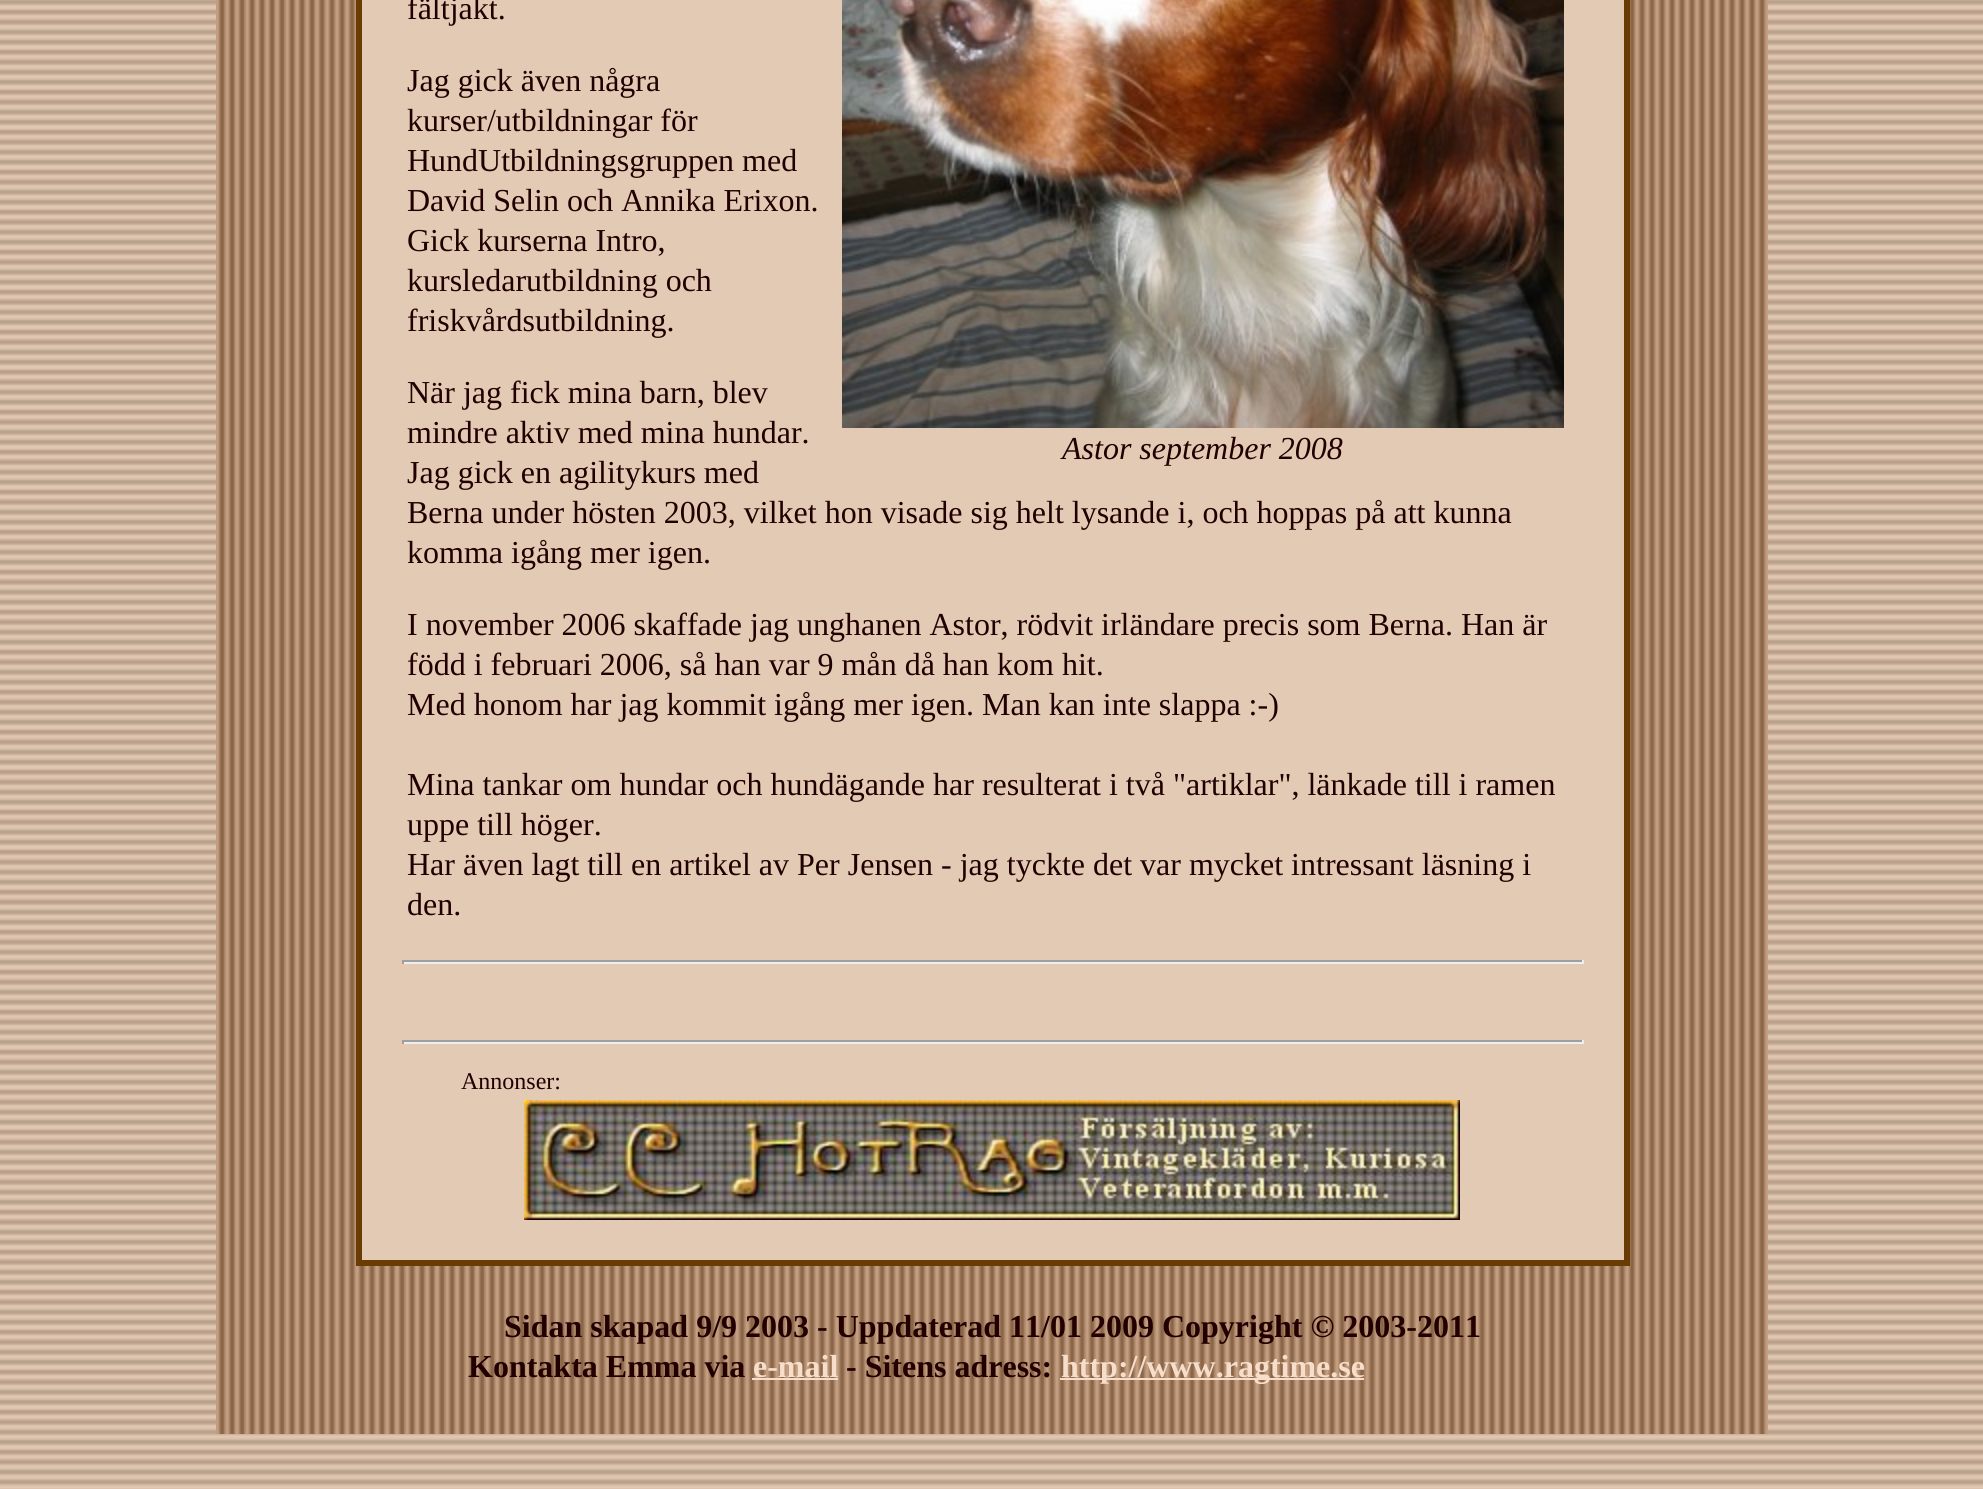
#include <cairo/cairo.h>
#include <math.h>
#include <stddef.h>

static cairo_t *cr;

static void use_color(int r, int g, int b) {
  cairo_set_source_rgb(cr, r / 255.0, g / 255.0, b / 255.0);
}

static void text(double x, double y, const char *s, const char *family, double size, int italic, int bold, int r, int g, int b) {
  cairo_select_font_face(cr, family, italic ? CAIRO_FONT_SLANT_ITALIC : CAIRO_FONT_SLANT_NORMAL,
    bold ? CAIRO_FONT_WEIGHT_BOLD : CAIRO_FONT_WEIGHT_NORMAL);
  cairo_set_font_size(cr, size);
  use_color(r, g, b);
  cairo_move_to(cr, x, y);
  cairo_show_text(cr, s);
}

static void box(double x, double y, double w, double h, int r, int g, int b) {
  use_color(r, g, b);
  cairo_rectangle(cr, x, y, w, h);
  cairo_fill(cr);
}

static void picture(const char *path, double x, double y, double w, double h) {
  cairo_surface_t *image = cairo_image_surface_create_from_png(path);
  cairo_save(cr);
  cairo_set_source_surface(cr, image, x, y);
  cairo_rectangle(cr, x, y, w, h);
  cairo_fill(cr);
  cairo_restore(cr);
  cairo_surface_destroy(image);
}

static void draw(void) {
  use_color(255, 255, 255);
  cairo_paint(cr);
  picture("img_01.png", 0, 0, 1983, 1489);
  picture("img_02.png", 216, 0, 1552, 1434);
  box(362, 0, 1262, 1260, 227, 202, 180);
  box(1624, 0, 6, 1266, 104, 60, 2);
  box(356, 1260, 1274, 6, 104, 60, 2);
  box(356, 0, 6, 1266, 104, 60, 2);
  picture("img_03.png", 842, 0, 722, 428);
  box(402, 960, 1182, 2, 159, 159, 159);
  box(1582, 960, 2, 4, 238, 238, 238);
  box(402, 962, 1182, 2, 238, 238, 238);
  box(402, 960, 2, 4, 159, 159, 159);
  box(402, 1040, 1182, 2, 159, 159, 159);
  box(1582, 1040, 2, 4, 238, 238, 238);
  box(402, 1042, 1182, 2, 238, 238, 238);
  box(402, 1040, 2, 4, 159, 159, 159);
  picture("img_04.png", 524, 1100, 936, 120);
  box(752, 1378, 86, 2, 247, 222, 202);
  box(1060, 1378, 304, 2, 247, 222, 202);
  text(407, 19, "fältjakt.", "Liberation Serif", 32, 0, 0, 34, 0, 0);
  text(407, 91, "Jag gick även några", "Liberation Serif", 32, 0, 0, 34, 0, 0);
  text(407, 131, "kurser/utbildningar för", "Liberation Serif", 32, 0, 0, 34, 0, 0);
  text(407, 171, "HundUtbildningsgruppen med", "Liberation Serif", 32, 0, 0, 34, 0, 0);
  text(407, 211, "David Selin och Annika Erixon.", "Liberation Serif", 32, 0, 0, 34, 0, 0);
  text(407, 251, "Gick kurserna Intro,", "Liberation Serif", 32, 0, 0, 34, 0, 0);
  text(407, 291, "kursledarutbildning och", "Liberation Serif", 32, 0, 0, 34, 0, 0);
  text(407, 331, "friskvårdsutbildning.", "Liberation Serif", 32, 0, 0, 34, 0, 0);
  text(407, 403, "När jag fick mina barn, blev", "Liberation Serif", 32, 0, 0, 34, 0, 0);
  text(407, 443, "mindre aktiv med mina hundar.", "Liberation Serif", 32, 0, 0, 34, 0, 0);
  text(407, 483, "Jag gick en agilitykurs med", "Liberation Serif", 32, 0, 0, 34, 0, 0);
  text(407, 523, "Berna under hösten 2003, vilket hon visade sig helt lysande i, och hoppas på att kunna", "Liberation Serif", 32, 0, 0, 34, 0, 0);
  text(407, 563, "komma igång mer igen.", "Liberation Serif", 32, 0, 0, 34, 0, 0);
  text(1062, 459, "Astor september 2008", "Liberation Serif", 32, 1, 0, 34, 0, 0);
  text(407, 635, "I november 2006 skaffade jag unghanen Astor, rödvit irländare precis som Berna. Han är", "Liberation Serif", 32, 0, 0, 34, 0, 0);
  text(407, 675, "född i februari 2006, så han var 9 mån då han kom hit.", "Liberation Serif", 32, 0, 0, 34, 0, 0);
  text(407, 715, "Med honom har jag kommit igång mer igen. Man kan inte slappa :-)", "Liberation Serif", 32, 0, 0, 34, 0, 0);
  text(407, 795, "Mina tankar om hundar och hundägande har resulterat i två \"artiklar\", länkade till i ramen", "Liberation Serif", 32, 0, 0, 34, 0, 0);
  text(407, 835, "uppe till höger.", "Liberation Serif", 32, 0, 0, 34, 0, 0);
  text(407, 875, "Har även lagt till en artikel av Per Jensen - jag tyckte det var mycket intressant läsning i", "Liberation Serif", 32, 0, 0, 34, 0, 0);
  text(407, 915, "den.", "Liberation Serif", 32, 0, 0, 34, 0, 0);
  text(461, 1089, "Annonser:", "Liberation Serif", 24, 0, 0, 34, 0, 0);
  text(504, 1337, "Sidan skapad 9/9 2003 - Uppdaterad 11/01 2009 Copyright © 2003-2011", "Liberation Serif", 32, 0, 1, 34, 0, 0);
  text(468, 1377, "Kontakta Emma via", "Liberation Serif", 32, 0, 1, 34, 0, 0);
  text(753, 1377, "e-mail", "Liberation Serif", 32, 0, 1, 247, 222, 202);
  text(846, 1377, "- Sitens adress:", "Liberation Serif", 32, 0, 1, 34, 0, 0);
  text(1061, 1377, "http://www.ragtime.se", "Liberation Serif", 32, 0, 1, 247, 222, 202);
}

int main(void) {
  cairo_surface_t *surface = cairo_image_surface_create(CAIRO_FORMAT_RGB24, 1983, 1489);
  cr = cairo_create(surface);
  cairo_font_options_t *options = cairo_font_options_create();
  cairo_font_options_set_hint_metrics(options, CAIRO_HINT_METRICS_OFF);
  cairo_font_options_set_hint_style(options, CAIRO_HINT_STYLE_NONE);
  cairo_set_font_options(cr, options);
  cairo_set_miter_limit(cr, 4);
  draw();
  cairo_surface_write_to_png(surface, "out.png");
  cairo_font_options_destroy(options);
  cairo_destroy(cr);
  cairo_surface_destroy(surface);
  return 0;
}
